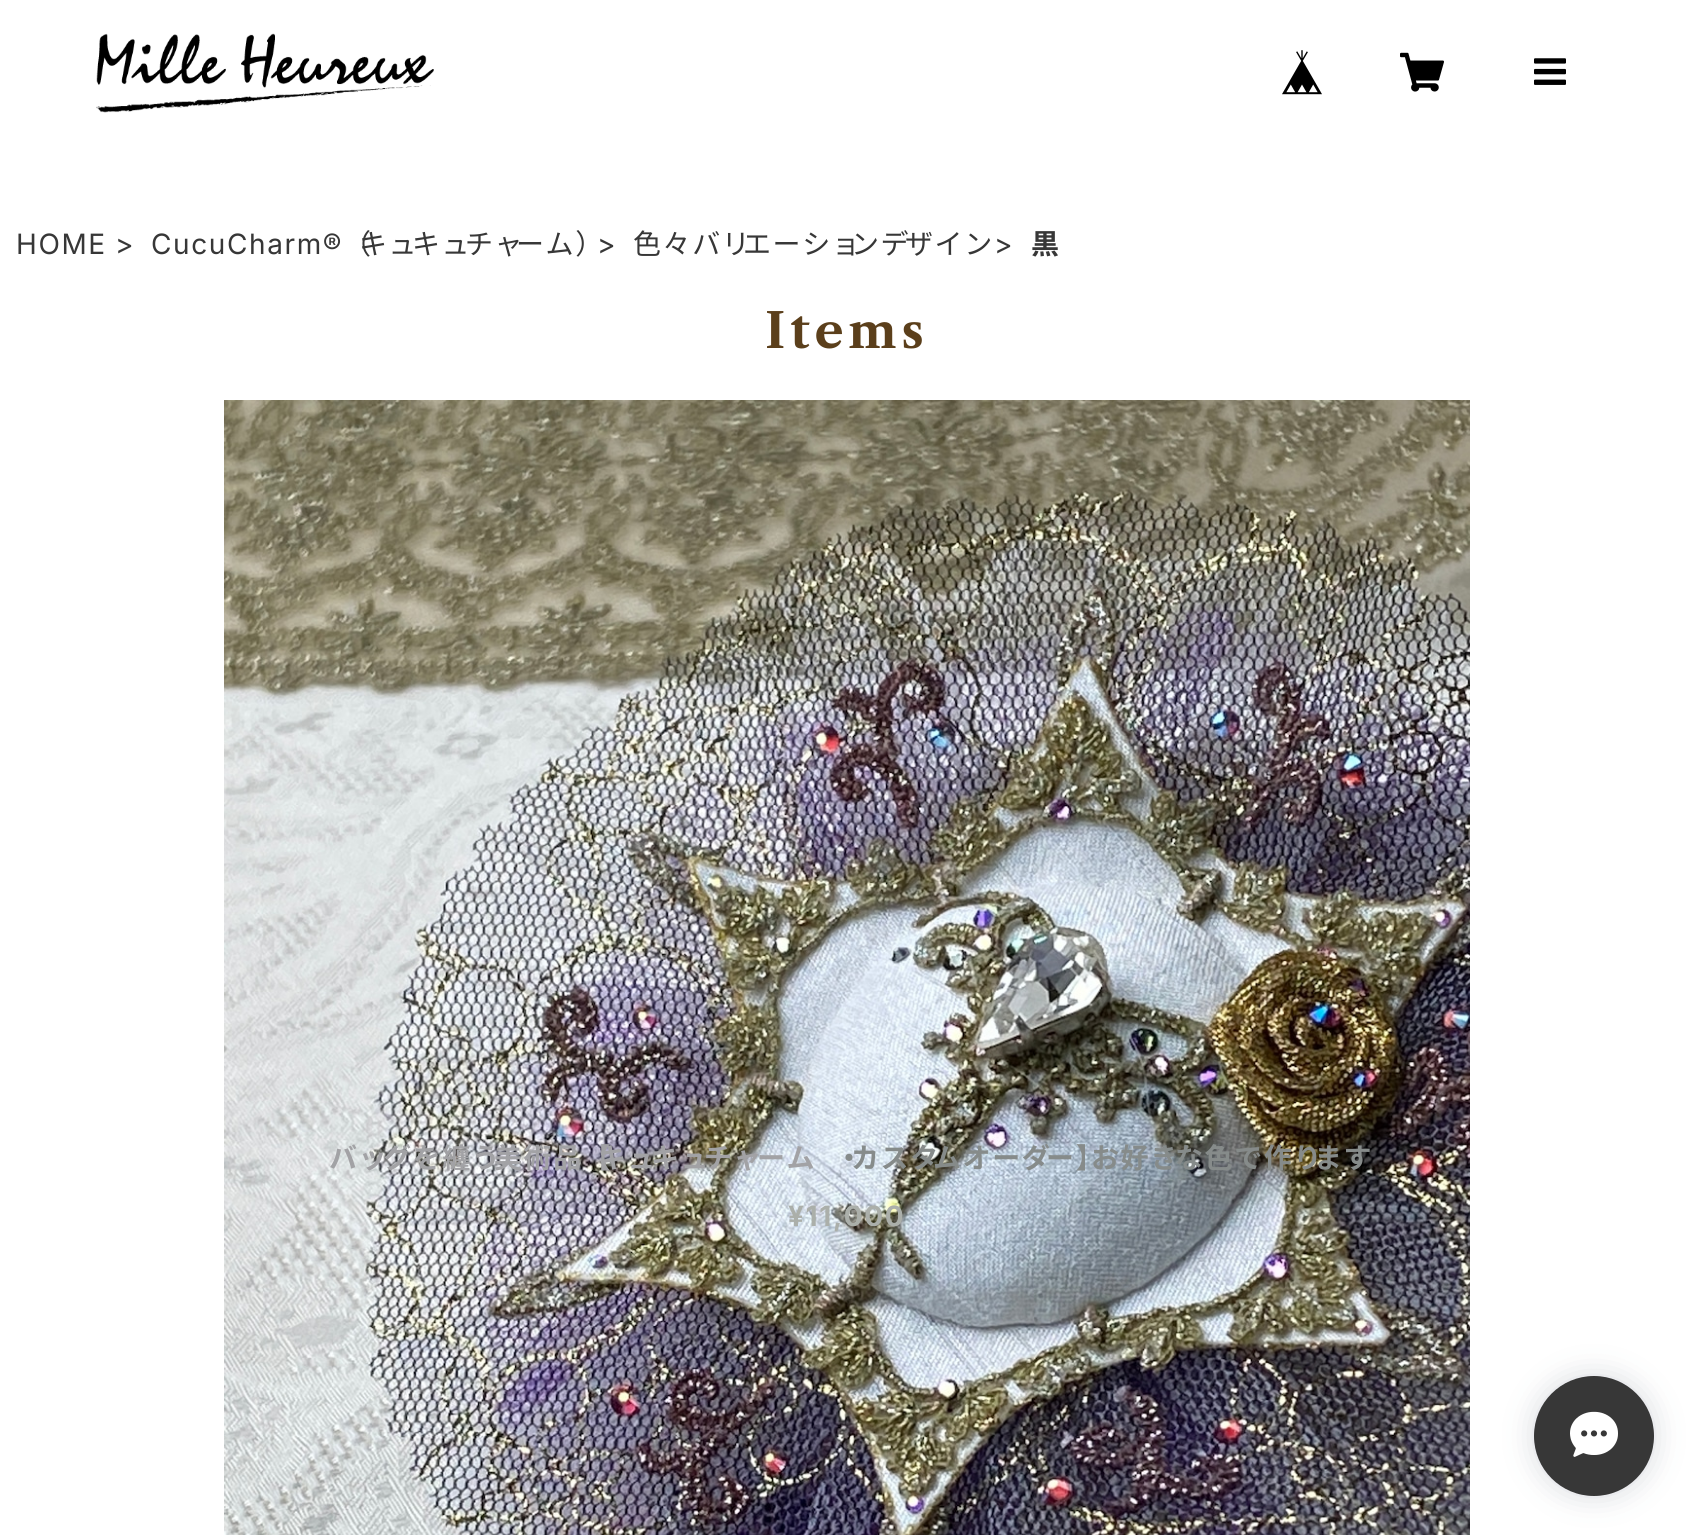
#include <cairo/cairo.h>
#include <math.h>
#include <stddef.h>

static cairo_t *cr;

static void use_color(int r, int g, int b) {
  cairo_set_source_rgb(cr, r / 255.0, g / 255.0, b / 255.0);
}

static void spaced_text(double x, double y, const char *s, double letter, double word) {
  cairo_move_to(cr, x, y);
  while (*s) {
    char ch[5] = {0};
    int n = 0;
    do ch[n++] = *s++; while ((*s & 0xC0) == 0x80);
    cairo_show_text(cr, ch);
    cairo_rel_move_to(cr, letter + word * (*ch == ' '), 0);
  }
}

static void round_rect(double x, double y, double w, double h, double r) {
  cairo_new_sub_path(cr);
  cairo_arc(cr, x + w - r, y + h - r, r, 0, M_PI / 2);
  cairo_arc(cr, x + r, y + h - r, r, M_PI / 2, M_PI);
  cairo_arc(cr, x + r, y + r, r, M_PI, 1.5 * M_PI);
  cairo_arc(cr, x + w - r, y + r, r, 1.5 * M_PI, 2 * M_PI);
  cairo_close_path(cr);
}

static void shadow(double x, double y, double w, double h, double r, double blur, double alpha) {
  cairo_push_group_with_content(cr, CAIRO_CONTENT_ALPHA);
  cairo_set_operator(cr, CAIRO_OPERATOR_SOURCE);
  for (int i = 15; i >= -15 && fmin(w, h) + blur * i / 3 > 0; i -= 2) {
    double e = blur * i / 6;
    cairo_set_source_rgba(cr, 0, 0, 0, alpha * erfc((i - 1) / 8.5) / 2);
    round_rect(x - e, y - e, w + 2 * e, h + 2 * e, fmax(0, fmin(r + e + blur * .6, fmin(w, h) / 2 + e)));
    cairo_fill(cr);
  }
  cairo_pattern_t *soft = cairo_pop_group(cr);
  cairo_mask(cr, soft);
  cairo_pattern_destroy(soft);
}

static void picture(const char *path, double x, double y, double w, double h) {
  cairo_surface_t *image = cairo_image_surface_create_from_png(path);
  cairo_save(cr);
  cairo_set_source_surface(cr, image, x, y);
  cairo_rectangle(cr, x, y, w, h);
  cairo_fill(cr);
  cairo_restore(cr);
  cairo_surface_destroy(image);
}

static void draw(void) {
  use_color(255, 255, 255);
  cairo_paint(cr);
  picture("img_01.png", 96, 33, 338, 80);
  picture("img_02.png", 1282, 50, 40, 45);
  picture("img_03.png", 1400, 52, 44, 40);
  picture("img_04.png", 1534, 58, 32, 27);
  picture("img_05.png", 224, 400, 1246, 1135);
  use_color(51, 66, 88);
  shadow(1534, 1376, 120, 120, 60, 15, 0.2);
  use_color(55, 55, 55);
  cairo_arc(cr, 1594, 1436, 60, 0, 2 * M_PI);
  cairo_fill(cr);
  picture("img_06.png", 1570, 1411, 48, 46);
  cairo_select_font_face(cr, "Inter", CAIRO_FONT_SLANT_NORMAL, CAIRO_FONT_WEIGHT_NORMAL);
  cairo_set_font_size(cr, 28);
  spaced_text(16, 254, "HOME", 1.6, 0);
  spaced_text(115, 254, ">", 1.6, 0);
  spaced_text(151, 254, "CucuCharm®", 1.6, 0);
  cairo_select_font_face(cr, "Noto Sans JP", CAIRO_FONT_SLANT_NORMAL, CAIRO_FONT_WEIGHT_NORMAL);
  spaced_text(343, 254, "（", 1.6, 0);
  spaced_text(359, 254, "キュ", 1.6, 0);
  spaced_text(412, 254, "キュ", 1.6, 0);
  spaced_text(465, 254, "チャ", 1.6, 0);
  spaced_text(516, 254, "ーム）", 1.6, 0);
  cairo_select_font_face(cr, "Inter", CAIRO_FONT_SLANT_NORMAL, CAIRO_FONT_WEIGHT_NORMAL);
  spaced_text(597, 254, ">", 1.6, 0);
  cairo_select_font_face(cr, "Noto Sans JP", CAIRO_FONT_SLANT_NORMAL, CAIRO_FONT_WEIGHT_NORMAL);
  spaced_text(633, 254, "色々バリ", 1.6, 0);
  spaced_text(743, 254, "エーショ", 1.6, 0);
  spaced_text(851, 254, "ンデ", 1.6, 0);
  spaced_text(905, 254, "ザイン", 1.6, 0);
  cairo_select_font_face(cr, "Inter", CAIRO_FONT_SLANT_NORMAL, CAIRO_FONT_WEIGHT_NORMAL);
  spaced_text(994, 254, ">", 1.6, 0);
  cairo_select_font_face(cr, "Noto Sans JP", CAIRO_FONT_SLANT_NORMAL, CAIRO_FONT_WEIGHT_BOLD);
  spaced_text(1031, 254, "黒", 1.6, 0);
  cairo_select_font_face(cr, "Libre Caslon Text", CAIRO_FONT_SLANT_NORMAL, CAIRO_FONT_WEIGHT_BOLD);
  cairo_set_font_size(cr, 48);
  use_color(91, 63, 27);
  spaced_text(765, 348, "Items", 4.75, 0);
  cairo_select_font_face(cr, "Noto Sans JP", CAIRO_FONT_SLANT_NORMAL, CAIRO_FONT_WEIGHT_BOLD);
  cairo_set_font_size(cr, 28);
  use_color(162, 162, 165);
  spaced_text(329, 1168, "バッ", 1.6, 0);
  spaced_text(383, 1168, "グを纏う", 1.6, 0);
  spaced_text(494, 1168, "美術品【", 1.6, 0);
  spaced_text(598, 1168, "キュ", 1.6, 0);
  spaced_text(651, 1168, "キュ", 1.6, 0);
  spaced_text(704, 1168, "チャ", 1.6, 0);
  spaced_text(757, 1168, "ーム", 1.6, 0);
  use_color(134, 139, 138);
  spaced_text(835, 1168, "・", 1.6, 0);
  spaced_text(851, 1168, "カスタ", 1.6, 0);
  spaced_text(933, 1168, "ムオーダ", 1.6, 0);
  spaced_text(1046, 1168, "ー】", 1.6, 0);
  spaced_text(1091, 1168, "お好き", 1.6, 0);
  spaced_text(1175, 1168, "な色で作り", 1.6, 0);
  spaced_text(1314, 1168, "ます", 1.6, 0);
  cairo_select_font_face(cr, "Inter", CAIRO_FONT_SLANT_NORMAL, CAIRO_FONT_WEIGHT_BOLD);
  use_color(171, 175, 170);
  spaced_text(788, 1226, "¥11,000", 1.6, 0);
}

int main(void) {
  cairo_surface_t *surface = cairo_image_surface_create(CAIRO_FORMAT_RGB24, 1693, 1535);
  cr = cairo_create(surface);
  cairo_font_options_t *options = cairo_font_options_create();
  cairo_font_options_set_hint_metrics(options, CAIRO_HINT_METRICS_OFF);
  cairo_font_options_set_hint_style(options, CAIRO_HINT_STYLE_NONE);
  cairo_set_font_options(cr, options);
  cairo_set_miter_limit(cr, 4);
  draw();
  cairo_surface_write_to_png(surface, "out.png");
  cairo_font_options_destroy(options);
  cairo_destroy(cr);
  cairo_surface_destroy(surface);
  return 0;
}
